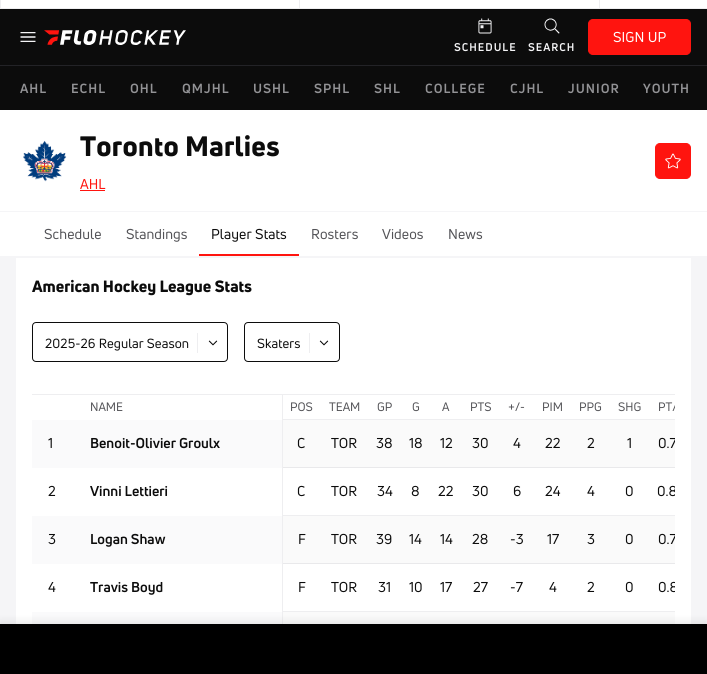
#include <cairo/cairo.h>
#include <math.h>
#include <stddef.h>

static cairo_t *cr;

static void use_color(int r, int g, int b) {
  cairo_set_source_rgb(cr, r / 255.0, g / 255.0, b / 255.0);
}

static void text(double x, double y, const char *s, const char *family, double size, int italic, int bold, int r, int g, int b) {
  cairo_select_font_face(cr, family, italic ? CAIRO_FONT_SLANT_ITALIC : CAIRO_FONT_SLANT_NORMAL,
    bold ? CAIRO_FONT_WEIGHT_BOLD : CAIRO_FONT_WEIGHT_NORMAL);
  cairo_set_font_size(cr, size);
  use_color(r, g, b);
  cairo_move_to(cr, x, y);
  cairo_show_text(cr, s);
}

static void spaced_text(double x, double y, const char *s, double letter, double word) {
  cairo_move_to(cr, x, y);
  while (*s) {
    char ch[5] = {0};
    int n = 0;
    do ch[n++] = *s++; while ((*s & 0xC0) == 0x80);
    cairo_show_text(cr, ch);
    cairo_rel_move_to(cr, letter + word * (*ch == ' '), 0);
  }
}

static void box(double x, double y, double w, double h, int r, int g, int b) {
  use_color(r, g, b);
  cairo_rectangle(cr, x, y, w, h);
  cairo_fill(cr);
}

static void round_rect(double x, double y, double w, double h, double r) {
  cairo_new_sub_path(cr);
  cairo_arc(cr, x + w - r, y + h - r, r, 0, M_PI / 2);
  cairo_arc(cr, x + r, y + h - r, r, M_PI / 2, M_PI);
  cairo_arc(cr, x + r, y + r, r, M_PI, 1.5 * M_PI);
  cairo_arc(cr, x + w - r, y + r, r, 1.5 * M_PI, 2 * M_PI);
  cairo_close_path(cr);
}

static void shadow(double x, double y, double w, double h, double r, double blur, double alpha) {
  cairo_push_group_with_content(cr, CAIRO_CONTENT_ALPHA);
  cairo_set_operator(cr, CAIRO_OPERATOR_SOURCE);
  for (int i = 15; i >= -15 && fmin(w, h) + blur * i / 3 > 0; i -= 2) {
    double e = blur * i / 6;
    cairo_set_source_rgba(cr, 0, 0, 0, alpha * erfc((i - 1) / 8.5) / 2);
    round_rect(x - e, y - e, w + 2 * e, h + 2 * e, fmax(0, fmin(r + e + blur * .6, fmin(w, h) / 2 + e)));
    cairo_fill(cr);
  }
  cairo_pattern_t *soft = cairo_pop_group(cr);
  cairo_mask(cr, soft);
  cairo_pattern_destroy(soft);
}

static void picture(const char *path, double x, double y, double w, double h) {
  cairo_surface_t *image = cairo_image_surface_create_from_png(path);
  cairo_save(cr);
  cairo_set_source_surface(cr, image, x, y);
  cairo_rectangle(cr, x, y, w, h);
  cairo_fill(cr);
  cairo_restore(cr);
  cairo_surface_destroy(image);
}

static void draw(void) {
  use_color(245, 245, 247);
  cairo_paint(cr);
  box(0, 8, 707, 1, 238, 238, 240);
  box(0, 0, 707, 8, 255, 255, 255);
  box(299, 0, 1, 8, 238, 238, 240);
  box(0, 0, 1, 8, 238, 238, 240);
  box(599, 0, 1, 8, 238, 238, 240);
  box(0, 9, 707, 101, 12, 12, 12);
  picture("img_01.png", 20, 32, 16, 10);
  picture("img_02.png", 44, 30, 142, 15);
  use_color(255, 20, 15);
  round_rect(588.5, 19.5, 102, 35, 4.5);
  cairo_fill_preserve(cr);
  cairo_set_line_width(cr, 1);
  cairo_stroke(cr);
  picture("img_03.png", 478, 18, 14, 16);
  picture("img_04.png", 544, 18, 16, 16);
  box(0, 65, 707, 1, 35, 35, 39);
  box(0, 110, 707, 101, 255, 255, 255);
  picture("img_05.png", 23, 140, 44, 42);
  box(80, 190, 25, 1, 255, 20, 15);
  round_rect(655.5, 143.5, 35, 35, 4.5);
  cairo_fill_preserve(cr);
  cairo_stroke(cr);
  picture("img_06.png", 665, 153, 16, 16);
  box(0, 212, 707, 44, 255, 255, 255);
  box(199, 254, 100, 2, 255, 20, 15);
  box(16, 258, 675, 366, 255, 255, 255);
  box(283, 612, 392, 12, 250, 250, 250);
  box(283, 516, 392, 47, 250, 250, 250);
  box(283, 420, 392, 47, 250, 250, 250);
  round_rect(32.5, 322.5, 195, 39, 3.5);
  use_color(12, 12, 12);
  cairo_stroke(cr);
  box(197, 333, 1, 20, 238, 238, 240);
  picture("img_07.png", 208, 340, 10, 6);
  round_rect(244.5, 322.5, 95, 39, 3.5);
  use_color(12, 12, 12);
  cairo_stroke(cr);
  box(309, 333, 1, 20, 238, 238, 240);
  picture("img_07.png", 319, 340, 10, 6);
  box(32, 394, 643, 1, 238, 238, 240);
  box(282, 467, 393, 1, 233, 233, 235);
  box(282, 563, 393, 1, 233, 233, 235);
  box(282, 395, 1, 229, 238, 238, 240);
  box(283, 419, 392, 1, 238, 238, 240);
  box(32, 420, 250, 48, 250, 250, 251);
  box(283, 515, 392, 1, 238, 238, 240);
  box(32, 516, 250, 48, 250, 250, 251);
  box(283, 611, 392, 1, 238, 238, 240);
  box(32, 612, 250, 12, 250, 250, 251);
  use_color(0, 0, 0);
  shadow(0, 622, 707, 50, 0, 4, 0.1);
  box(0, 624, 707, 50, 0, 0, 0);
  cairo_select_font_face(cr, "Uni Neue", CAIRO_FONT_SLANT_NORMAL, CAIRO_FONT_WEIGHT_NORMAL);
  cairo_set_font_size(cr, 14);
  use_color(255, 255, 255);
  spaced_text(613, 42, "SIGN UP", 0.1, 0);
  cairo_select_font_face(cr, "Uni Neue", CAIRO_FONT_SLANT_NORMAL, CAIRO_FONT_WEIGHT_BOLD);
  cairo_set_font_size(cr, 11);
  use_color(245, 245, 247);
  spaced_text(454, 51, "SCHEDULE", 1, 0);
  spaced_text(528, 51, "SEARCH", 1, 0);
  cairo_set_font_size(cr, 13);
  use_color(147, 147, 150);
  spaced_text(20, 93, "AHL", 1, 0);
  spaced_text(71, 93, "ECHL", 1, 0);
  spaced_text(130, 93, "OHL", 1, 0);
  spaced_text(182, 93, "QMJHL", 1, 0);
  spaced_text(253, 93, "USHL", 1, 0);
  spaced_text(314, 93, "SPHL", 1, 0);
  spaced_text(374, 93, "SHL", 1, 0);
  spaced_text(425, 93, "COLLEGE", 1, 0);
  spaced_text(510, 93, "CJHL", 1, 0);
  spaced_text(568, 93, "JUNIOR", 1, 0);
  spaced_text(643, 93, "YOUTH", 1, 0);
  cairo_select_font_face(cr, "Uni Neue Black", CAIRO_FONT_SLANT_NORMAL, CAIRO_FONT_WEIGHT_NORMAL);
  cairo_set_font_size(cr, 27.5);
  use_color(12, 12, 12);
  spaced_text(80, 156, "Toronto Marlies", 0.25, 0);
  text(80, 189, "AHL", "Uni Neue", 14, 0, 0, 255, 20, 15);
  use_color(83, 83, 87);
  spaced_text(44, 239, "Schedule", 0.1, 0);
  spaced_text(126, 239, "Standings", 0.1, 0);
  use_color(12, 12, 12);
  spaced_text(211, 239, "Player Stats", 0.1, 0);
  use_color(83, 83, 87);
  spaced_text(311, 239, "Rosters", 0.1, 0);
  spaced_text(382, 239, "Videos", 0.1, 0);
  spaced_text(448, 239, "News", 0.1, 0);
  text(32, 292, "American Hockey League Stats", "Uni Neue Black", 16, 0, 0, 12, 12, 12);
  cairo_select_font_face(cr, "Uni Neue", CAIRO_FONT_SLANT_NORMAL, CAIRO_FONT_WEIGHT_NORMAL);
  cairo_set_font_size(cr, 13);
  spaced_text(45, 348, "2025-26 Regular Season", 0.1, 0);
  spaced_text(257, 348, "Skaters", 0.1, 0);
  text(90, 411, "NAME", "Uni Neue", 12, 0, 0, 83, 83, 87);
  text(290, 411, "POS", "Uni Neue", 12, 0, 0, 83, 83, 87);
  text(329, 411, "TEAM", "Uni Neue", 12, 0, 0, 83, 83, 87);
  text(377, 411, "GP", "Uni Neue", 12, 0, 0, 83, 83, 87);
  text(412, 411, "G", "Uni Neue", 12, 0, 0, 83, 83, 87);
  text(442, 411, "A", "Uni Neue", 12, 0, 0, 83, 83, 87);
  text(470, 411, "PTS", "Uni Neue", 12, 0, 0, 83, 83, 87);
  text(508, 411, "+/-", "Uni Neue", 12, 0, 0, 83, 83, 87);
  text(542, 411, "PIM", "Uni Neue", 12, 0, 0, 83, 83, 87);
  text(579, 411, "PPG", "Uni Neue", 12, 0, 0, 83, 83, 87);
  text(618, 411, "SHG", "Uni Neue", 12, 0, 0, 83, 83, 87);
  cairo_save(cr);
  cairo_rectangle(cr, 649, 395, 26, 25);
  cairo_clip(cr);
  text(658, 411, "PT/", "Uni Neue", 12, 0, 0, 83, 83, 87);
  cairo_restore(cr);
  text(48, 448, "1", "Uni Neue", 14, 0, 0, 12, 12, 12);
  text(90, 448, "Benoit-Olivier Groulx", "Uni Neue", 14, 0, 1, 12, 12, 12);
  text(297, 448, "C", "Uni Neue", 14, 0, 0, 12, 12, 12);
  text(331, 448, "TOR", "Uni Neue", 14, 0, 0, 12, 12, 12);
  text(376, 448, "38", "Uni Neue", 14, 0, 0, 12, 12, 12);
  text(409, 448, "18", "Uni Neue", 14, 0, 0, 12, 12, 12);
  text(440, 448, "12", "Uni Neue", 14, 0, 0, 12, 12, 12);
  text(472, 448, "30", "Uni Neue", 14, 0, 0, 12, 12, 12);
  text(513, 448, "4", "Uni Neue", 14, 0, 0, 12, 12, 12);
  text(545, 448, "22", "Uni Neue", 14, 0, 0, 12, 12, 12);
  text(587, 448, "2", "Uni Neue", 14, 0, 0, 12, 12, 12);
  text(627, 448, "1", "Uni Neue", 14, 0, 0, 12, 12, 12);
  cairo_save(cr);
  cairo_rectangle(cr, 658, 433, 17, 21);
  cairo_clip(cr);
  text(658, 448, "0.7", "Uni Neue", 14, 0, 0, 12, 12, 12);
  cairo_restore(cr);
  text(48, 496, "2", "Uni Neue", 14, 0, 0, 12, 12, 12);
  text(90, 496, "Vinni Lettieri", "Uni Neue", 14, 0, 1, 12, 12, 12);
  text(297, 496, "C", "Uni Neue", 14, 0, 0, 12, 12, 12);
  text(331, 496, "TOR", "Uni Neue", 14, 0, 0, 12, 12, 12);
  text(377, 496, "34", "Uni Neue", 14, 0, 0, 12, 12, 12);
  text(411, 496, "8", "Uni Neue", 14, 0, 0, 12, 12, 12);
  text(438, 496, "22", "Uni Neue", 14, 0, 0, 12, 12, 12);
  text(472, 496, "30", "Uni Neue", 14, 0, 0, 12, 12, 12);
  text(513, 496, "6", "Uni Neue", 14, 0, 0, 12, 12, 12);
  text(545, 496, "24", "Uni Neue", 14, 0, 0, 12, 12, 12);
  text(587, 496, "4", "Uni Neue", 14, 0, 0, 12, 12, 12);
  text(625, 496, "0", "Uni Neue", 14, 0, 0, 12, 12, 12);
  cairo_save(cr);
  cairo_rectangle(cr, 657, 481, 18, 21);
  cairo_clip(cr);
  text(657, 496, "0.8", "Uni Neue", 14, 0, 0, 12, 12, 12);
  cairo_restore(cr);
  text(48, 544, "3", "Uni Neue", 14, 0, 0, 12, 12, 12);
  text(90, 544, "Logan Shaw", "Uni Neue", 14, 0, 1, 12, 12, 12);
  text(298, 544, "F", "Uni Neue", 14, 0, 0, 12, 12, 12);
  text(331, 544, "TOR", "Uni Neue", 14, 0, 0, 12, 12, 12);
  text(376, 544, "39", "Uni Neue", 14, 0, 0, 12, 12, 12);
  text(409, 544, "14", "Uni Neue", 14, 0, 0, 12, 12, 12);
  text(440, 544, "14", "Uni Neue", 14, 0, 0, 12, 12, 12);
  text(472, 544, "28", "Uni Neue", 14, 0, 0, 12, 12, 12);
  text(510, 544, "-3", "Uni Neue", 14, 0, 0, 12, 12, 12);
  text(547, 544, "17", "Uni Neue", 14, 0, 0, 12, 12, 12);
  text(587, 544, "3", "Uni Neue", 14, 0, 0, 12, 12, 12);
  text(625, 544, "0", "Uni Neue", 14, 0, 0, 12, 12, 12);
  cairo_save(cr);
  cairo_rectangle(cr, 658, 529, 17, 21);
  cairo_clip(cr);
  text(658, 544, "0.7", "Uni Neue", 14, 0, 0, 12, 12, 12);
  cairo_restore(cr);
  text(48, 592, "4", "Uni Neue", 14, 0, 0, 12, 12, 12);
  text(90, 592, "Travis Boyd", "Uni Neue", 14, 0, 1, 12, 12, 12);
  text(298, 592, "F", "Uni Neue", 14, 0, 0, 12, 12, 12);
  text(331, 592, "TOR", "Uni Neue", 14, 0, 0, 12, 12, 12);
  text(378, 592, "31", "Uni Neue", 14, 0, 0, 12, 12, 12);
  text(409, 592, "10", "Uni Neue", 14, 0, 0, 12, 12, 12);
  text(440, 592, "17", "Uni Neue", 14, 0, 0, 12, 12, 12);
  text(473, 592, "27", "Uni Neue", 14, 0, 0, 12, 12, 12);
  text(510, 592, "-7", "Uni Neue", 14, 0, 0, 12, 12, 12);
  text(549, 592, "4", "Uni Neue", 14, 0, 0, 12, 12, 12);
  text(587, 592, "2", "Uni Neue", 14, 0, 0, 12, 12, 12);
  text(625, 592, "0", "Uni Neue", 14, 0, 0, 12, 12, 12);
  cairo_save(cr);
  cairo_rectangle(cr, 658, 577, 17, 21);
  cairo_clip(cr);
  text(658, 592, "0.8", "Uni Neue", 14, 0, 0, 12, 12, 12);
  cairo_restore(cr);
}

int main(void) {
  cairo_surface_t *surface = cairo_image_surface_create(CAIRO_FORMAT_RGB24, 707, 674);
  cr = cairo_create(surface);
  cairo_font_options_t *options = cairo_font_options_create();
  cairo_font_options_set_hint_metrics(options, CAIRO_HINT_METRICS_OFF);
  cairo_font_options_set_hint_style(options, CAIRO_HINT_STYLE_NONE);
  cairo_set_font_options(cr, options);
  cairo_set_miter_limit(cr, 4);
  draw();
  cairo_surface_write_to_png(surface, "out.png");
  cairo_font_options_destroy(options);
  cairo_destroy(cr);
  cairo_surface_destroy(surface);
  return 0;
}
